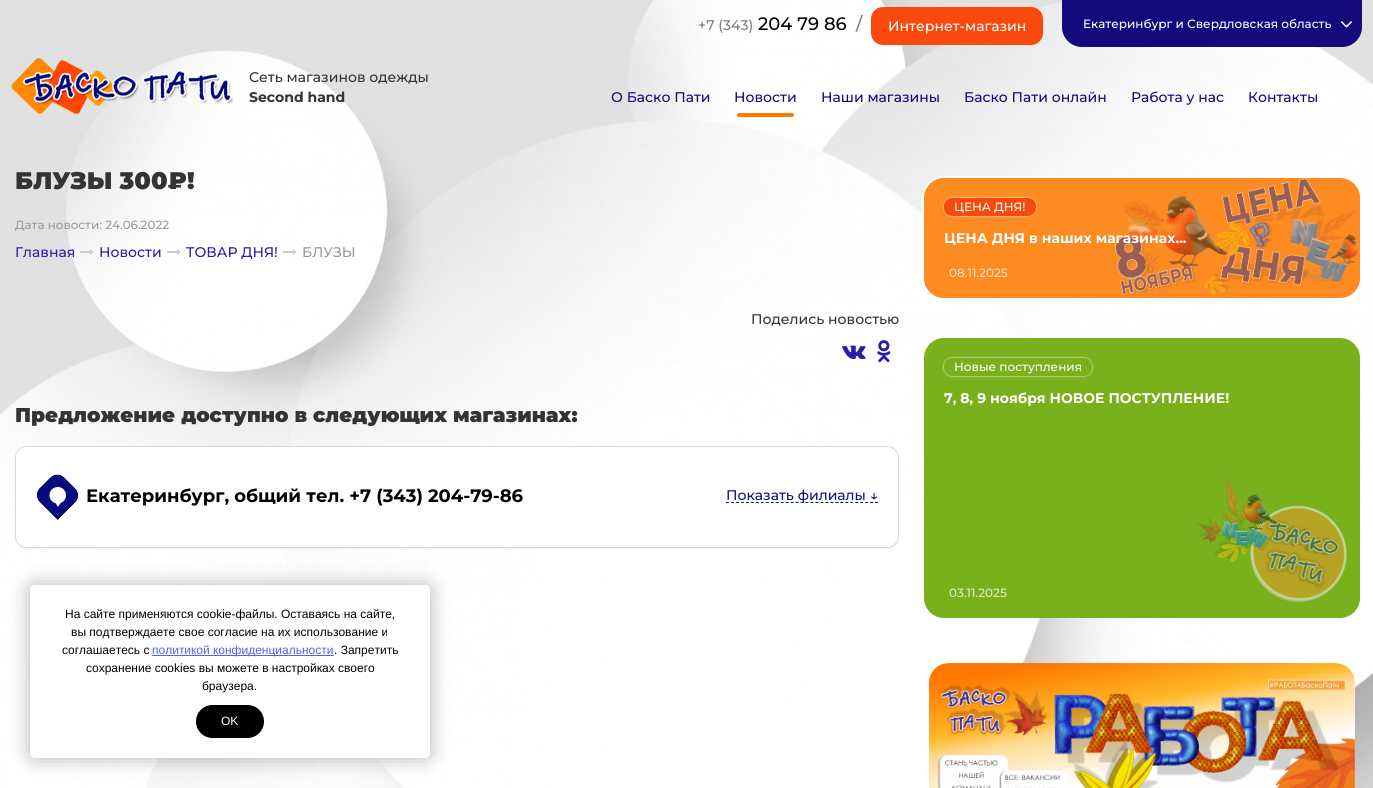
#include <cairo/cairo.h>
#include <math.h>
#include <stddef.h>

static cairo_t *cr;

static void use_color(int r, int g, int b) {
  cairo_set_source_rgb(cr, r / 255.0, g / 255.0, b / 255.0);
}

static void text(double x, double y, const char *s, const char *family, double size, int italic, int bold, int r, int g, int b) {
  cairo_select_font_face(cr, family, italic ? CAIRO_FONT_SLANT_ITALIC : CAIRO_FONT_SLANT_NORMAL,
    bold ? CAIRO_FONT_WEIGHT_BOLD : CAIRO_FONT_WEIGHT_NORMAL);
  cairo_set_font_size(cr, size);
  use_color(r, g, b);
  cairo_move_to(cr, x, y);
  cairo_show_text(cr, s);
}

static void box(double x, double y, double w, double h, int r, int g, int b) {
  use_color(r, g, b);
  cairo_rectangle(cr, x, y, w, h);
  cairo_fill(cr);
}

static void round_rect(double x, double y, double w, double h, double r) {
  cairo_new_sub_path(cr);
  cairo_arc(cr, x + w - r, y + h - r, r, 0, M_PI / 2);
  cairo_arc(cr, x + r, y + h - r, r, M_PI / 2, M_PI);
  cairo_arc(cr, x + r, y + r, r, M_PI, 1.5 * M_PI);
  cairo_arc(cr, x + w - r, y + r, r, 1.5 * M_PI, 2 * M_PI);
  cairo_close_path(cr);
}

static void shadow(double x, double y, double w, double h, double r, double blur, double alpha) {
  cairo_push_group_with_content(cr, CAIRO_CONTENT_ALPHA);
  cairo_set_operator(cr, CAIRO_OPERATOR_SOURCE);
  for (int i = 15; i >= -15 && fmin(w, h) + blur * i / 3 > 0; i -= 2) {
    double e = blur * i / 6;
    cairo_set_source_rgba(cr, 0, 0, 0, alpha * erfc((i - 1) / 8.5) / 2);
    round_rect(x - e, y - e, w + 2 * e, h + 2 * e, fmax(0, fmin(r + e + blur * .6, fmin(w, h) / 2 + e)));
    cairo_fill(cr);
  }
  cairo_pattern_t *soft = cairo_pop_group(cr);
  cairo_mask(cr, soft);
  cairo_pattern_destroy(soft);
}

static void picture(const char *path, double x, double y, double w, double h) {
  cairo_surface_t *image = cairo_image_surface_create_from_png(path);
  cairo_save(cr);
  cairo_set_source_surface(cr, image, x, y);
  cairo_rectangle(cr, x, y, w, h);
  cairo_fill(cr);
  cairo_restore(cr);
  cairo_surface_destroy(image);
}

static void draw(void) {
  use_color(255, 255, 255);
  cairo_paint(cr);
  picture("img_01.png", 0, 0, 1373, 788);
  use_color(249, 73, 12);
  round_rect(871, 7, 172, 38, 12);
  cairo_fill(cr);
  use_color(20, 10, 125);
  cairo_new_path(cr);
  cairo_move_to(cr, 1062, 0);
  cairo_line_to(cr, 1362, 0);
  cairo_line_to(cr, 1362, 27);
  cairo_curve_to(cr, 1362, 38, 1353, 47, 1342, 47);
  cairo_line_to(cr, 1082, 47);
  cairo_curve_to(cr, 1071, 47, 1062, 38, 1062, 27);
  cairo_close_path(cr);
  cairo_fill(cr);
  picture("img_02.png", 1340, 21, 12, 7);
  picture("img_03.png", 11, 58, 222, 56);
  use_color(255, 123, 0);
  round_rect(737, 113, 57, 4, 2);
  cairo_fill(cr);
  picture("img_04.png", 80, 249, 14, 6);
  picture("img_05.png", 167, 249, 14, 6);
  picture("img_06.png", 283, 249, 14, 6);
  picture("img_07.png", 842, 345, 24, 14);
  picture("img_08.png", 877, 340, 14, 23);
  use_color(0, 0, 0);
  shadow(15, 447, 884, 102, 12, 0.5, 0.05);
  use_color(255, 255, 255);
  round_rect(15.5, 446.5, 883, 101, 11.5);
  cairo_fill_preserve(cr);
  use_color(216, 216, 216);
  cairo_set_line_width(cr, 1);
  cairo_stroke(cr);
  use_color(255, 255, 255);
  round_rect(16, 447, 882, 100, 12);
  cairo_fill(cr);
  picture("img_09.png", 36, 474, 43, 46);
  cairo_new_path(cr);
  cairo_move_to(cr, 726, 502.5);
  cairo_line_to(cr, 878, 502.5);
  use_color(16, 19, 120);
  cairo_set_dash(cr, (double[]){3, 1.97}, 2, 0);
  cairo_stroke(cr);
  use_color(253, 139, 33);
  round_rect(923, 177, 438, 122, 21);
  cairo_fill_preserve(cr);
  use_color(255, 255, 255);
  cairo_set_line_width(cr, 2);
  cairo_set_dash(cr, NULL, 0, 0);
  cairo_stroke(cr);
  use_color(255, 255, 255);
  shadow(944, 198, 92, 18, 8, 1, 1);
  use_color(249, 74, 13);
  round_rect(944, 198, 92, 18, 8);
  cairo_fill(cr);
  picture("img_10.png", 1115, 178, 244, 119);
  use_color(120, 177, 28);
  round_rect(924, 338, 436, 280, 20);
  cairo_fill(cr);
  use_color(255, 255, 255);
  shadow(944, 358, 148, 18, 8, 1, 1);
  use_color(120, 177, 28);
  round_rect(944, 358, 148, 18, 8);
  cairo_fill(cr);
  picture("img_11.png", 1196, 478, 151, 125);
  picture("img_12.png", 929, 663, 426, 125);
  use_color(0, 0, 0);
  shadow(30, 585, 400, 173, 5, 10, 0.3);
  use_color(255, 255, 255);
  round_rect(30, 585, 400, 173, 5);
  cairo_fill(cr);
  box(152, 655, 182, 1, 82, 95, 251);
  use_color(0, 0, 0);
  round_rect(196, 705, 68, 33, 16.5);
  cairo_fill(cr);
  text(698, 30, "+7 (343)", "Montserrat Medium", 14, 0, 0, 127, 127, 127);
  text(758, 30, "204 79 86", "Montserrat Medium", 18, 0, 0, 0, 0, 0);
  text(856, 30, "/", "Montserrat Medium", 18, 0, 0, 127, 127, 127);
  text(888, 31, "Интернет-магазин", "Montserrat Medium", 14, 0, 0, 255, 255, 255);
  text(1083, 28, "Екатеринбург и Свердловская область", "Montserrat Medium", 12, 0, 0, 255, 255, 255);
  text(249, 82, "Сеть магазинов одежды", "Montserrat Medium", 14, 0, 0, 51, 51, 51);
  text(249, 102, "Second hand", "Montserrat", 14, 0, 1, 51, 51, 51);
  text(611, 102, "О Баско Пати", "Montserrat Medium", 14, 0, 0, 20, 10, 125);
  text(734, 102, "Новости", "Montserrat Medium", 14, 0, 0, 20, 10, 125);
  text(821, 102, "Наши магазины", "Montserrat Medium", 14, 0, 0, 20, 10, 125);
  text(964, 102, "Баско Пати онлайн", "Montserrat Medium", 14, 0, 0, 20, 10, 125);
  text(1131, 102, "Работа у нас", "Montserrat Medium", 14, 0, 0, 20, 10, 125);
  text(1248, 102, "Контакты", "Montserrat Medium", 14, 0, 0, 20, 10, 125);
  text(15, 189, "БЛУЗЫ 300₽!", "Montserrat Black", 24, 0, 0, 51, 51, 51);
  text(15, 229, "Дата новости: 24.06.2022", "Montserrat Medium", 11.9, 0, 0, 153, 153, 153);
  text(15, 257, "Главная", "Montserrat Medium", 14, 0, 0, 41, 29, 172);
  text(99, 257, "Новости", "Montserrat Medium", 14, 0, 0, 41, 29, 172);
  text(186, 257, "ТОВАР ДНЯ!", "Montserrat Medium", 14, 0, 0, 41, 29, 172);
  text(302, 257, "БЛУЗЫ", "Montserrat Medium", 14, 0, 0, 153, 153, 153);
  text(751, 324, "Поделись новостью", "Montserrat Medium", 14, 0, 0, 51, 51, 51);
  text(15, 422, "Предложение доступно в следующих магазинах:", "Montserrat Black", 20, 0, 0, 51, 51, 51);
  text(86, 502, "Екатеринбург, общий тел. +7 (343) 204-79-86", "Montserrat", 18, 0, 1, 0, 0, 0);
  text(726, 500, "Показать филиалы ↓", "Montserrat Medium", 14, 0, 0, 16, 19, 120);
  text(954, 211, "ЦЕНА ДНЯ!", "Montserrat Medium", 12, 0, 0, 255, 255, 255);
  text(944, 243, "ЦЕНА ДНЯ в наших магазинах...", "Montserrat", 14, 0, 1, 255, 255, 255);
  text(949, 277, "08.11.2025", "Montserrat Medium", 12, 0, 0, 255, 226, 200);
  text(954, 371, "Новые поступления", "Montserrat Medium", 12, 0, 0, 255, 255, 255);
  text(944, 403, "7, 8, 9 ноября НОВОЕ ПОСТУПЛЕНИЕ!", "Montserrat", 14, 0, 1, 255, 255, 255);
  text(949, 597, "03.11.2025", "Montserrat Medium", 12, 0, 0, 221, 236, 198);
  text(65, 618, "На сайте применяются cookie-файлы. Оставаясь на сайте,", "Liberation Sans", 12, 0, 0, 0, 0, 0);
  text(71, 636, "вы подтверждаете свое согласие на их использование и", "Liberation Sans", 12, 0, 0, 0, 0, 0);
  text(62, 654, "соглашаетесь с", "Liberation Sans", 12, 0, 0, 0, 0, 0);
  text(152, 654, "политикой конфиденциальности", "Liberation Sans", 12, 0, 0, 82, 95, 251);
  text(334, 654, ". Запретить", "Liberation Sans", 12, 0, 0, 0, 0, 0);
  text(86, 672, "сохранение cookies вы можете в настройках своего", "Liberation Sans", 12, 0, 0, 0, 0, 0);
  text(202, 690, "браузера.", "Liberation Sans", 12, 0, 0, 0, 0, 0);
  text(221, 725, "OK", "Liberation Sans", 12, 0, 0, 255, 255, 255);
}

int main(void) {
  cairo_surface_t *surface = cairo_image_surface_create(CAIRO_FORMAT_RGB24, 1373, 788);
  cr = cairo_create(surface);
  cairo_font_options_t *options = cairo_font_options_create();
  cairo_font_options_set_hint_metrics(options, CAIRO_HINT_METRICS_OFF);
  cairo_font_options_set_hint_style(options, CAIRO_HINT_STYLE_NONE);
  cairo_set_font_options(cr, options);
  cairo_set_miter_limit(cr, 4);
  draw();
  cairo_surface_write_to_png(surface, "out.png");
  cairo_font_options_destroy(options);
  cairo_destroy(cr);
  cairo_surface_destroy(surface);
  return 0;
}
